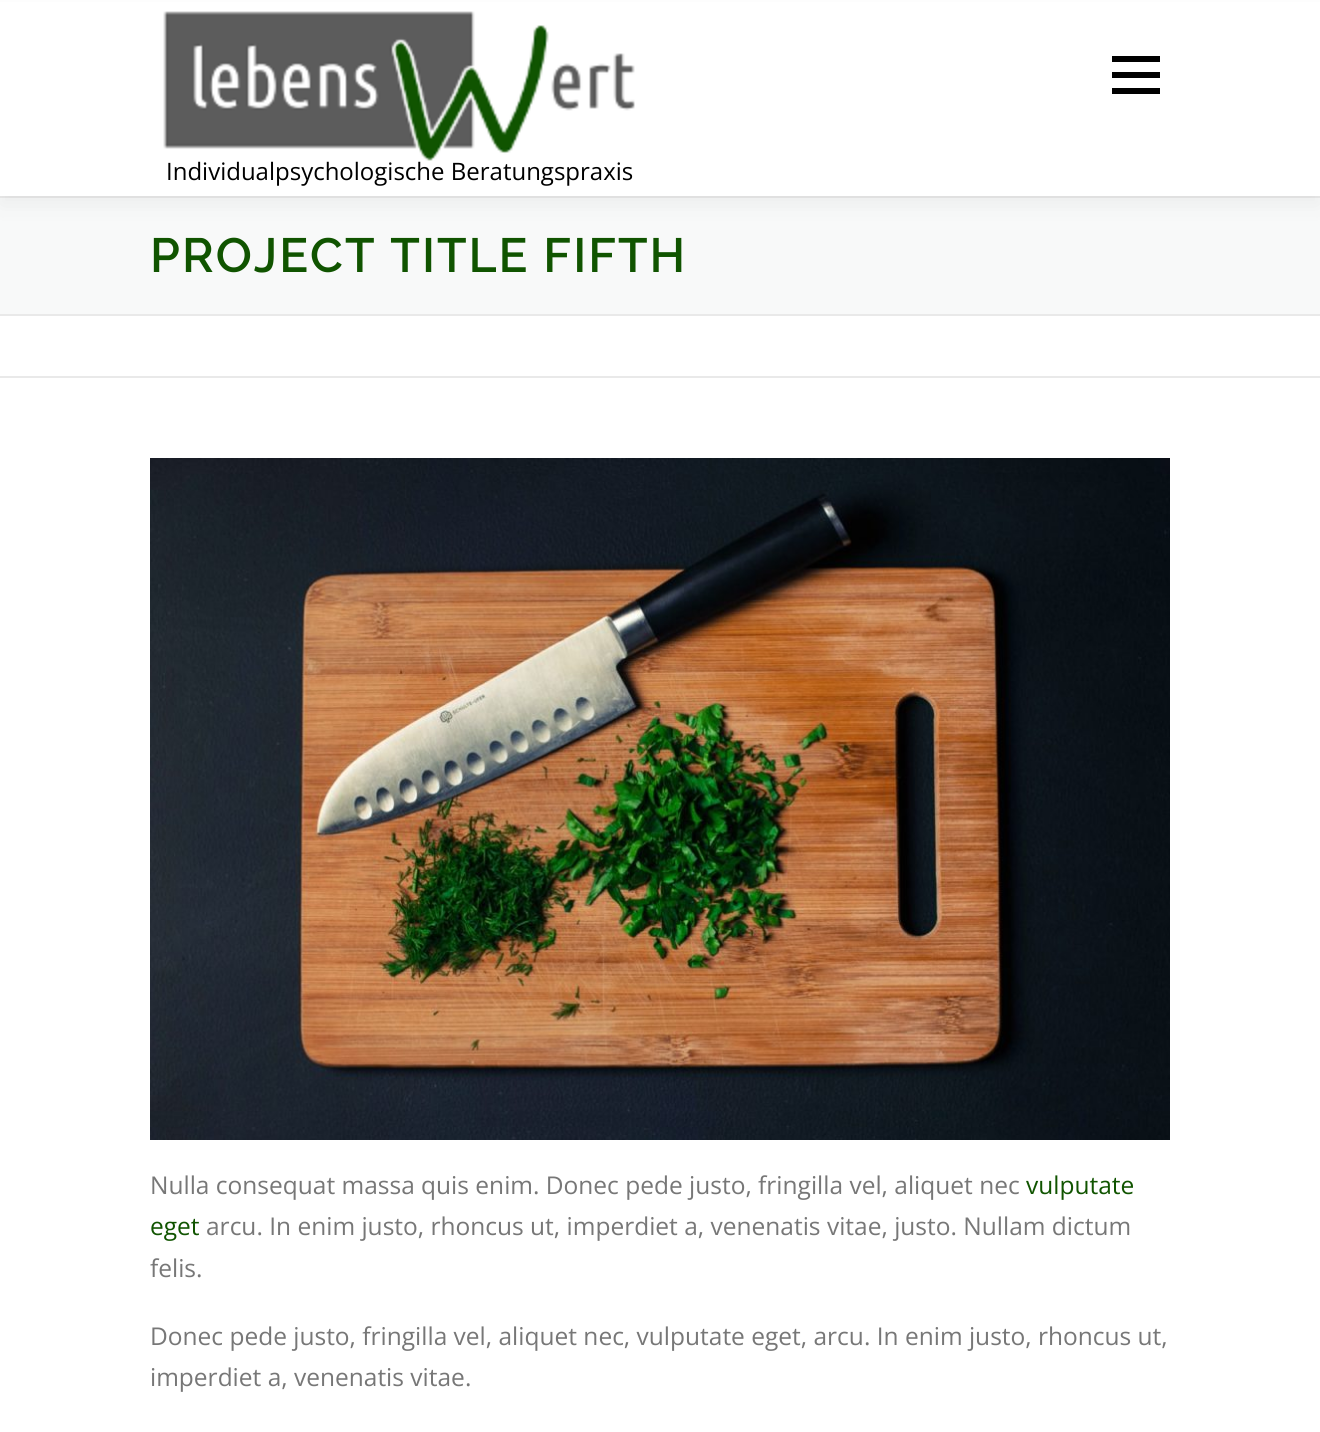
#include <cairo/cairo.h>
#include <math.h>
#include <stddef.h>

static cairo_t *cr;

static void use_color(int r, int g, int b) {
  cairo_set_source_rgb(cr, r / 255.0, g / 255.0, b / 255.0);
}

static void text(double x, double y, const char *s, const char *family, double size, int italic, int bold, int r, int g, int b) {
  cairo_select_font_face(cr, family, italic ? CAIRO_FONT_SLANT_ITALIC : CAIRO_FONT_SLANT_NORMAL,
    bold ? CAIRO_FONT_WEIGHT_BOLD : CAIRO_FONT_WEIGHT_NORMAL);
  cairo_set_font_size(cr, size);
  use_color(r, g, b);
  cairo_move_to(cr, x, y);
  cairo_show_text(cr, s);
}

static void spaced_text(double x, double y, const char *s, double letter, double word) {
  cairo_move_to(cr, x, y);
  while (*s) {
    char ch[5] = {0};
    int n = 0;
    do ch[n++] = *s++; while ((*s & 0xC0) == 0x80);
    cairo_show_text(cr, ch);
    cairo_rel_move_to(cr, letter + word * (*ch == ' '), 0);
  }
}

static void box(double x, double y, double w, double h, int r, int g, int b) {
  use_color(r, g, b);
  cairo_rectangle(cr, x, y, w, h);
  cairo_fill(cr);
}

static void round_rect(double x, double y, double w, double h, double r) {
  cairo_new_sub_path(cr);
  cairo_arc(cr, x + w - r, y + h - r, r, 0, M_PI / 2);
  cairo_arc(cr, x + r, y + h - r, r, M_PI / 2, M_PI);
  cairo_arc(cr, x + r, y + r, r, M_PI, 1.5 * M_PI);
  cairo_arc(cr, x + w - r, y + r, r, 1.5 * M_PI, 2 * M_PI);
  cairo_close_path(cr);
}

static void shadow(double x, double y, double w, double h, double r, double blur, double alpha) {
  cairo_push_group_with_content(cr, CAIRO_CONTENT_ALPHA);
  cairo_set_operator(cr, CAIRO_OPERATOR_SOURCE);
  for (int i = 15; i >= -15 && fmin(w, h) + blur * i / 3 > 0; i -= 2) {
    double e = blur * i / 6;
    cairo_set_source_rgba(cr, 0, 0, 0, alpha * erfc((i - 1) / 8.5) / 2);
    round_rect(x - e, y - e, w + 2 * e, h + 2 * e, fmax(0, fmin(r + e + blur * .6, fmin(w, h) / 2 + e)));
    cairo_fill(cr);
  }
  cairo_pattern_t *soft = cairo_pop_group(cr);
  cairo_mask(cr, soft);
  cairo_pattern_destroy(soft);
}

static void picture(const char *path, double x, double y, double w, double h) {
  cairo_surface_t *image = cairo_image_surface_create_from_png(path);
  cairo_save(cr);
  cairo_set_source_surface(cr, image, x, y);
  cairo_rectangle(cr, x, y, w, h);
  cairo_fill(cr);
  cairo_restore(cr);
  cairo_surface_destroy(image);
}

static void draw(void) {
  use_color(255, 255, 255);
  cairo_paint(cr);
  box(0, 198, 1320, 116, 248, 249, 249);
  box(0, 196, 1320, 2, 233, 233, 233);
  use_color(50, 50, 50);
  shadow(0, 10, 1320, 196, 0, 10, 0.06);
  box(0, 2, 1320, 194, 255, 255, 255);
  box(1112, 72, 48, 6, 0, 0, 0);
  box(1112, 56, 48, 6, 0, 0, 0);
  box(1112, 88, 48, 6, 0, 0, 0);
  picture("img_01.png", 163, 11, 472, 150);
  box(0, 314, 1320, 2, 233, 233, 233);
  box(0, 376, 1320, 2, 233, 233, 233);
  picture("img_02.png", 150, 458, 1020, 682);
  text(166, 180, "Individualpsychologische Beratungspraxis", "Open Sans", 24, 0, 0, 0, 0, 0);
  cairo_select_font_face(cr, "Raleway SemiBold", CAIRO_FONT_SLANT_NORMAL, CAIRO_FONT_WEIGHT_NORMAL);
  cairo_set_font_size(cr, 48);
  use_color(16, 84, 0);
  spaced_text(150, 272, "PROJECT TITLE FIFTH", 2, 0);
  text(150, 1194, "Nulla consequat massa quis enim. Donec pede justo, fringilla vel, aliquet nec", "Open Sans", 24.5, 0, 0, 119, 119, 119);
  text(1026, 1194, "vulputate", "Open Sans", 24.5, 0, 0, 16, 84, 0);
  text(150, 1235, "eget", "Open Sans", 24.5, 0, 0, 16, 84, 0);
  text(206, 1235, "arcu. In enim justo, rhoncus ut, imperdiet a, venenatis vitae, justo. Nullam dictum", "Open Sans", 24.5, 0, 0, 119, 119, 119);
  text(150, 1277, "felis.", "Open Sans", 24.5, 0, 0, 119, 119, 119);
  text(150, 1345, "Donec pede justo, fringilla vel, aliquet nec, vulputate eget, arcu. In enim justo, rhoncus ut,", "Open Sans", 24.5, 0, 0, 119, 119, 119);
  text(150, 1386, "imperdiet a, venenatis vitae.", "Open Sans", 24.5, 0, 0, 119, 119, 119);
}

int main(void) {
  cairo_surface_t *surface = cairo_image_surface_create(CAIRO_FORMAT_RGB24, 1320, 1432);
  cr = cairo_create(surface);
  cairo_font_options_t *options = cairo_font_options_create();
  cairo_font_options_set_hint_metrics(options, CAIRO_HINT_METRICS_OFF);
  cairo_font_options_set_hint_style(options, CAIRO_HINT_STYLE_NONE);
  cairo_set_font_options(cr, options);
  cairo_set_miter_limit(cr, 4);
  draw();
  cairo_surface_write_to_png(surface, "out.png");
  cairo_font_options_destroy(options);
  cairo_destroy(cr);
  cairo_surface_destroy(surface);
  return 0;
}
